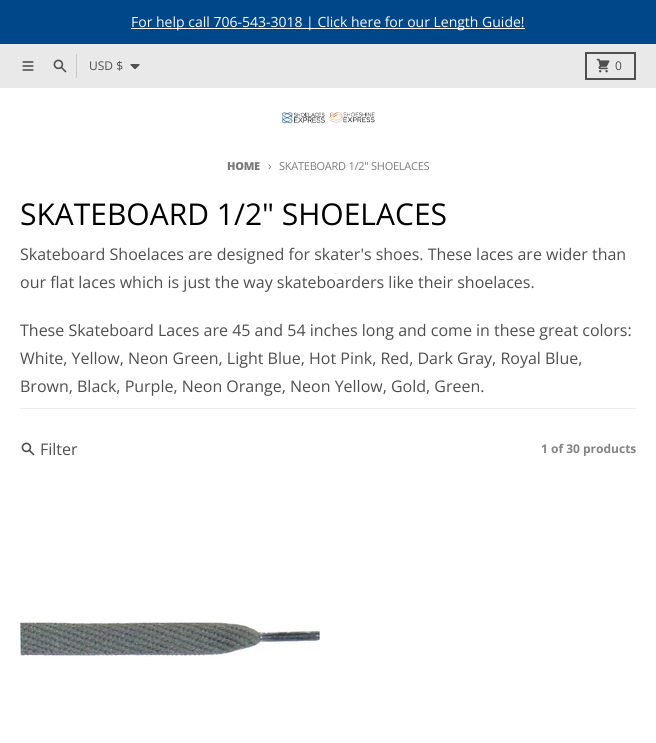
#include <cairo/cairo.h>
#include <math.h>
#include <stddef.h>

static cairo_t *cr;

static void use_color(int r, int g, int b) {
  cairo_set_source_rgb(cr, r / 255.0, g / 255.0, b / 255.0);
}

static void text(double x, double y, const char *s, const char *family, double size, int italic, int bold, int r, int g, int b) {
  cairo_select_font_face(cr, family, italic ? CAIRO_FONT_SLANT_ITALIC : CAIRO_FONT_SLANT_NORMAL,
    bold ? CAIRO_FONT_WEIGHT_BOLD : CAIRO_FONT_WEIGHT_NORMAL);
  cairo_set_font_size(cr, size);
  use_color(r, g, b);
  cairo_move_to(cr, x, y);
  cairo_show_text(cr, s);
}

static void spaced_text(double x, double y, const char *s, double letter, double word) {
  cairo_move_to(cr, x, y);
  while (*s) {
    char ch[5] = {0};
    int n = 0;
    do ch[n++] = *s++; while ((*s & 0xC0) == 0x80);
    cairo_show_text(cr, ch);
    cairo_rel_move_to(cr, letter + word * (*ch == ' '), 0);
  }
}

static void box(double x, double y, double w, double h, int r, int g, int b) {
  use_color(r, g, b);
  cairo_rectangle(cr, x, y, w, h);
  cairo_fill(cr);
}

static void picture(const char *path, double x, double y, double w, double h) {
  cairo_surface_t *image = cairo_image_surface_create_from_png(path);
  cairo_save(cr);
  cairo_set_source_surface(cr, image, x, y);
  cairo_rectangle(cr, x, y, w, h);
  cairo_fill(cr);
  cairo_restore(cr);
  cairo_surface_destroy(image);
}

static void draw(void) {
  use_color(233, 233, 233);
  cairo_paint(cr);
  box(0, 0, 656, 44, 0, 71, 137);
  box(131, 28, 394, 1, 250, 250, 250);
  picture("img_01.png", 22, 61, 12, 10);
  picture("img_02.png", 53, 59, 14, 14);
  box(76, 54, 1, 24, 202, 202, 202);
  picture("img_03.png", 130, 64, 10, 6);
  cairo_rectangle(cr, 586, 53, 49, 26);
  use_color(80, 80, 80);
  cairo_stroke(cr);
  picture("img_04.png", 596, 58, 14, 15);
  box(0, 88, 656, 655, 255, 255, 255);
  picture("img_05.png", 282, 112, 93, 12);
  box(20, 408, 616, 1, 237, 237, 237);
  picture("img_06.png", 21, 442, 14, 14);
  picture("img_07.png", 20, 621, 300, 36);
  text(131, 27, "For help call 706-543-3018 | Click here for our Length Guide!", "Open Sans", 14, 0, 0, 250, 250, 250);
  text(89, 70, "USD $", "Open Sans", 12, 0, 0, 79, 79, 79);
  text(615, 70, "0", "Open Sans", 12, 0, 0, 79, 79, 79);
  cairo_select_font_face(cr, "Open Sans ExtraBold", CAIRO_FONT_SLANT_NORMAL, CAIRO_FONT_WEIGHT_NORMAL);
  cairo_set_font_size(cr, 11);
  use_color(123, 123, 123);
  spaced_text(227, 170, "HOME", -0.25, 0);
  cairo_select_font_face(cr, "Open Sans", CAIRO_FONT_SLANT_NORMAL, CAIRO_FONT_WEIGHT_NORMAL);
  cairo_set_font_size(cr, 12);
  spaced_text(268, 170, "›", -0.25, 0);
  cairo_set_font_size(cr, 11);
  spaced_text(279, 170, "SKATEBOARD 1/2\" SHOELACES", -0.25, 0);
  text(20, 225, "SKATEBOARD 1/2\" SHOELACES", "Open Sans", 30, 0, 0, 0, 0, 0);
  text(20, 260, "Skateboard Shoelaces are designed for skater's shoes. These laces are wider than", "Open Sans", 16, 0, 0, 79, 79, 79);
  text(20, 288, "our flat laces which is just the way skateboarders like their shoelaces.", "Open Sans", 16, 0, 0, 79, 79, 79);
  text(20, 336, "These Skateboard Laces are 45 and 54 inches long and come in these great colors:", "Open Sans", 16, 0, 0, 79, 79, 79);
  text(20, 364, "White, Yellow, Neon Green, Light Blue, Hot Pink, Red, Dark Gray, Royal Blue,", "Open Sans", 16, 0, 0, 79, 79, 79);
  text(20, 392, "Brown, Black, Purple, Neon Orange, Neon Yellow, Gold, Green.", "Open Sans", 16, 0, 0, 79, 79, 79);
  text(40, 455, "Filter", "Open Sans", 16, 0, 0, 79, 79, 79);
  text(541, 453, "1 of 30 products", "Open Sans", 12, 0, 1, 132, 132, 132);
}

int main(void) {
  cairo_surface_t *surface = cairo_image_surface_create(CAIRO_FORMAT_RGB24, 656, 743);
  cr = cairo_create(surface);
  cairo_font_options_t *options = cairo_font_options_create();
  cairo_font_options_set_hint_metrics(options, CAIRO_HINT_METRICS_OFF);
  cairo_font_options_set_hint_style(options, CAIRO_HINT_STYLE_NONE);
  cairo_set_font_options(cr, options);
  cairo_set_miter_limit(cr, 4);
  draw();
  cairo_surface_write_to_png(surface, "out.png");
  cairo_font_options_destroy(options);
  cairo_destroy(cr);
  cairo_surface_destroy(surface);
  return 0;
}
